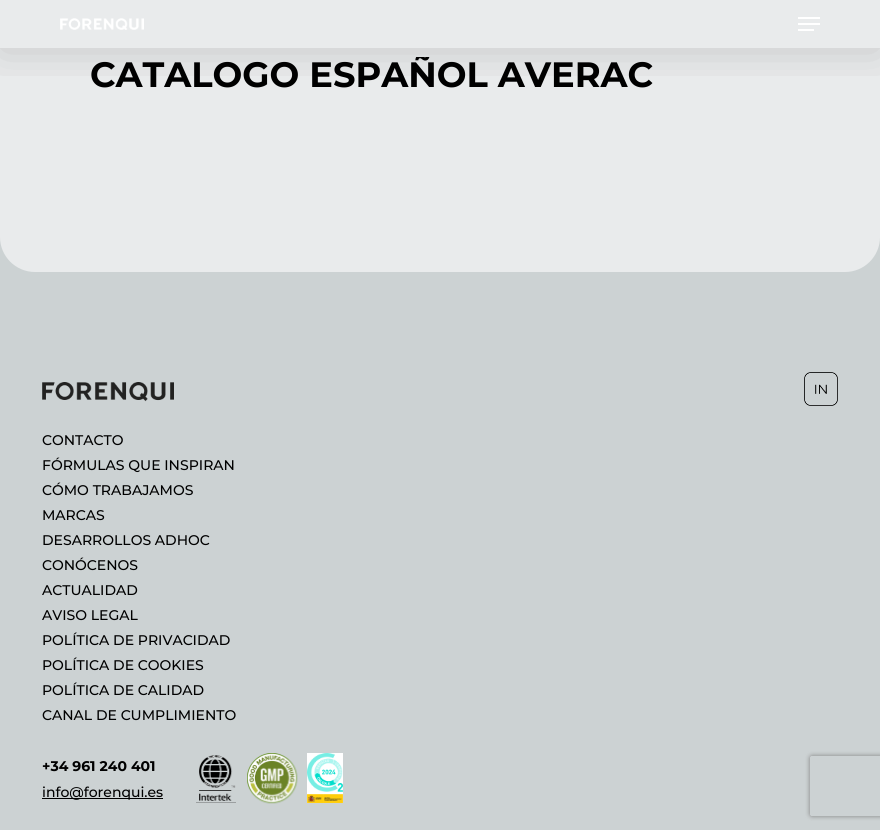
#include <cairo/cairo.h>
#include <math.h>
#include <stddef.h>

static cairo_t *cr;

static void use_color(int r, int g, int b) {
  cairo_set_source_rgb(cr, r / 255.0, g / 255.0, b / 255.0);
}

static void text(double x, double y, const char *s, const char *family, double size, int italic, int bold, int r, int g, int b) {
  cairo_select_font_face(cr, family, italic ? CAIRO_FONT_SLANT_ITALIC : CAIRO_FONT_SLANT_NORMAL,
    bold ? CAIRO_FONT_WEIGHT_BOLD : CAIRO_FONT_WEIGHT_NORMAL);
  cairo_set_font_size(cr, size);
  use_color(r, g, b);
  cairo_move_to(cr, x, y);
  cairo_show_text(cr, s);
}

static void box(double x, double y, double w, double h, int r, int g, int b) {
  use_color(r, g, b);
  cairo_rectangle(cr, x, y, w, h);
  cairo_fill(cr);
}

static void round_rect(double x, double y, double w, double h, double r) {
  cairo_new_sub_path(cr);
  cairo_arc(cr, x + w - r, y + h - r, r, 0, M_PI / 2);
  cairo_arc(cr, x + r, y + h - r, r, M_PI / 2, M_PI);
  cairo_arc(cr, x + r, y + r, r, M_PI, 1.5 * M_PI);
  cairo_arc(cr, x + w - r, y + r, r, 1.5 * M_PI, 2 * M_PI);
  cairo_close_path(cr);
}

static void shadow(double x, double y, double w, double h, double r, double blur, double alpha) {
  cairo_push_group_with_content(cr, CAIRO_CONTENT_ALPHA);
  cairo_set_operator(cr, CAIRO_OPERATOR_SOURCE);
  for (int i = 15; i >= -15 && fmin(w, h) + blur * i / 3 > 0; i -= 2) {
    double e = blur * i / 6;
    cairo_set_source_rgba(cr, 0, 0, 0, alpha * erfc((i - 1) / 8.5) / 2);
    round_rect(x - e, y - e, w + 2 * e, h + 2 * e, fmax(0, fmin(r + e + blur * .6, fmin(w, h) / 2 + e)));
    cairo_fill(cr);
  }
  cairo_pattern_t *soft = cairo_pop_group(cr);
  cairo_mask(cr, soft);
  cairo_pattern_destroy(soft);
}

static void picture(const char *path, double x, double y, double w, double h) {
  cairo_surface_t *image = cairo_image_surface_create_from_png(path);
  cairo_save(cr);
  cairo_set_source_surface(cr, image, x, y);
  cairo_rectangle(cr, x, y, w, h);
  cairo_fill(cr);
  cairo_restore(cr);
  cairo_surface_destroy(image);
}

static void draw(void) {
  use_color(204, 210, 211);
  cairo_paint(cr);
  use_color(233, 235, 236);
  round_rect(0, -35, 880, 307, 35);
  cairo_fill(cr);
  cairo_save(cr);
  cairo_rectangle(cr, 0, 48, 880, 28);
  cairo_clip(cr);
  use_color(0, 0, 0);
  shadow(0, 3, 880, 48, 0, 22.5, 0.15);
  cairo_restore(cr);
  picture("img_01.png", 60, 18, 84, 12);
  box(798, 17, 22, 2, 255, 255, 255);
  box(798, 29, 16, 2, 255, 255, 255);
  box(798, 23, 22, 2, 255, 255, 255);
  picture("img_02.png", 42, 382, 132, 20);
  picture("img_03.png", 804, 372, 34, 34);
  box(42, 798, 121, 1, 0, 0, 0);
  picture("img_04.png", 196, 755, 40, 48);
  picture("img_05.png", 247, 753, 51, 51);
  picture("img_06.png", 307, 753, 36, 50);
  cairo_save(cr);
  cairo_set_fill_rule(cr, CAIRO_FILL_RULE_EVEN_ODD);
  cairo_new_path(cr);
  cairo_move_to(cr, 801, 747);
  cairo_line_to(cr, 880, 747);
  cairo_line_to(cr, 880, 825);
  cairo_line_to(cr, 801, 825);
  cairo_close_path(cr);
  cairo_move_to(cr, 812, 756);
  cairo_line_to(cr, 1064, 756);
  cairo_curve_to(cr, 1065, 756, 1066, 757, 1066, 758);
  cairo_line_to(cr, 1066, 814);
  cairo_curve_to(cr, 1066, 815, 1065, 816, 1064, 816);
  cairo_line_to(cr, 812, 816);
  cairo_curve_to(cr, 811, 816, 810, 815, 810, 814);
  cairo_line_to(cr, 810, 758);
  cairo_curve_to(cr, 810, 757, 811, 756, 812, 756);
  cairo_close_path(cr);
  cairo_clip(cr);
  use_color(128, 128, 128);
  shadow(810, 756, 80, 60, 2, 2.5, 1);
  cairo_restore(cr);
  cairo_save(cr);
  cairo_rectangle(cr, 90, 57, 700, 85);
  cairo_clip(cr);
  text(90, 87, "CATALOGO ESPAÑOL AVERAC", "Montserrat", 35.25, 0, 1, 0, 0, 0);
  cairo_restore(cr);
  text(42, 445, "CONTACTO", "Montserrat Medium", 14, 0, 0, 0, 0, 0);
  text(42, 470, "FÓRMULAS QUE INSPIRAN", "Montserrat Medium", 14, 0, 0, 0, 0, 0);
  text(42, 495, "CÓMO TRABAJAMOS", "Montserrat Medium", 14, 0, 0, 0, 0, 0);
  text(42, 520, "MARCAS", "Montserrat Medium", 14, 0, 0, 0, 0, 0);
  text(42, 545, "DESARROLLOS ADHOC", "Montserrat Medium", 14, 0, 0, 0, 0, 0);
  text(42, 570, "CONÓCENOS", "Montserrat Medium", 14, 0, 0, 0, 0, 0);
  text(42, 595, "ACTUALIDAD", "Montserrat Medium", 14, 0, 0, 0, 0, 0);
  text(42, 620, "AVISO LEGAL", "Montserrat Medium", 14, 0, 0, 0, 0, 0);
  text(42, 645, "POLÍTICA DE PRIVACIDAD", "Montserrat Medium", 14, 0, 0, 0, 0, 0);
  text(42, 670, "POLÍTICA DE COOKIES", "Montserrat Medium", 14, 0, 0, 0, 0, 0);
  text(42, 695, "POLÍTICA DE CALIDAD", "Montserrat Medium", 14, 0, 0, 0, 0, 0);
  text(42, 720, "CANAL DE CUMPLIMIENTO", "Montserrat Medium", 14, 0, 0, 0, 0, 0);
  text(42, 771, "+34 961 240 401", "Montserrat", 14, 0, 1, 0, 0, 0);
  text(42, 797, "info@forenqui.es", "Montserrat Medium", 14, 0, 0, 0, 0, 0);
}

int main(void) {
  cairo_surface_t *surface = cairo_image_surface_create(CAIRO_FORMAT_RGB24, 880, 830);
  cr = cairo_create(surface);
  cairo_font_options_t *options = cairo_font_options_create();
  cairo_font_options_set_hint_metrics(options, CAIRO_HINT_METRICS_OFF);
  cairo_font_options_set_hint_style(options, CAIRO_HINT_STYLE_NONE);
  cairo_set_font_options(cr, options);
  cairo_set_miter_limit(cr, 4);
  draw();
  cairo_surface_write_to_png(surface, "out.png");
  cairo_font_options_destroy(options);
  cairo_destroy(cr);
  cairo_surface_destroy(surface);
  return 0;
}
